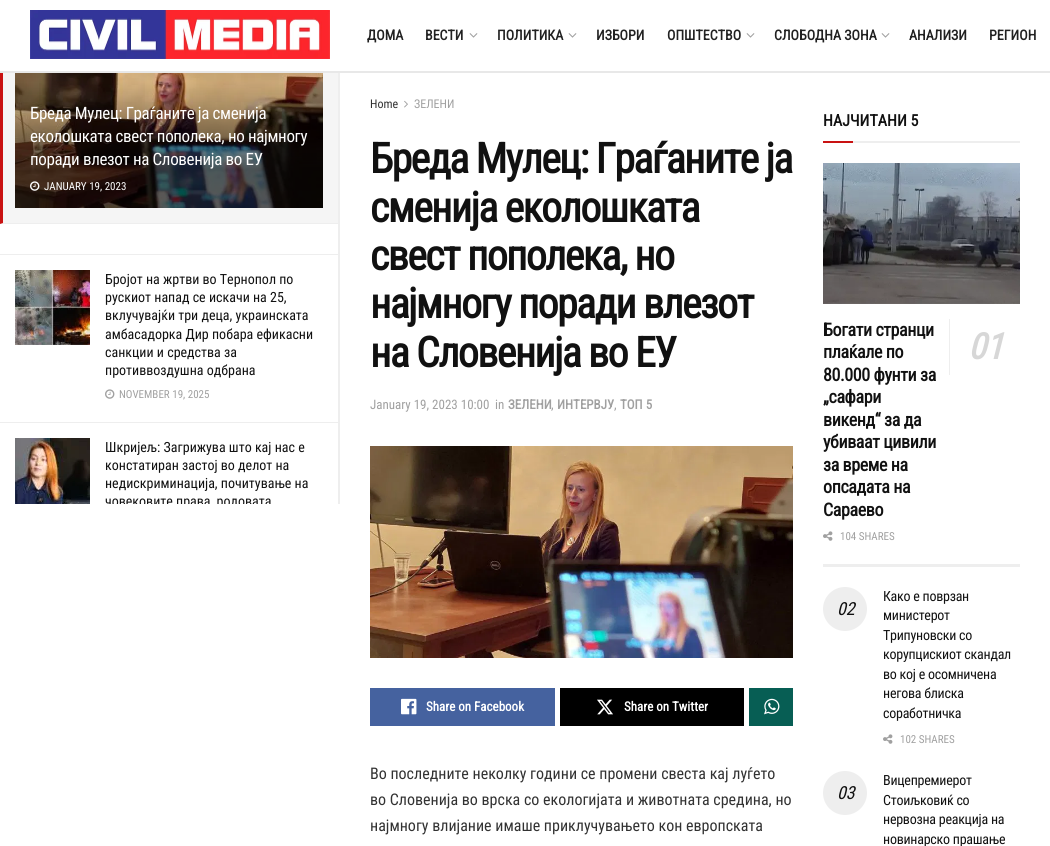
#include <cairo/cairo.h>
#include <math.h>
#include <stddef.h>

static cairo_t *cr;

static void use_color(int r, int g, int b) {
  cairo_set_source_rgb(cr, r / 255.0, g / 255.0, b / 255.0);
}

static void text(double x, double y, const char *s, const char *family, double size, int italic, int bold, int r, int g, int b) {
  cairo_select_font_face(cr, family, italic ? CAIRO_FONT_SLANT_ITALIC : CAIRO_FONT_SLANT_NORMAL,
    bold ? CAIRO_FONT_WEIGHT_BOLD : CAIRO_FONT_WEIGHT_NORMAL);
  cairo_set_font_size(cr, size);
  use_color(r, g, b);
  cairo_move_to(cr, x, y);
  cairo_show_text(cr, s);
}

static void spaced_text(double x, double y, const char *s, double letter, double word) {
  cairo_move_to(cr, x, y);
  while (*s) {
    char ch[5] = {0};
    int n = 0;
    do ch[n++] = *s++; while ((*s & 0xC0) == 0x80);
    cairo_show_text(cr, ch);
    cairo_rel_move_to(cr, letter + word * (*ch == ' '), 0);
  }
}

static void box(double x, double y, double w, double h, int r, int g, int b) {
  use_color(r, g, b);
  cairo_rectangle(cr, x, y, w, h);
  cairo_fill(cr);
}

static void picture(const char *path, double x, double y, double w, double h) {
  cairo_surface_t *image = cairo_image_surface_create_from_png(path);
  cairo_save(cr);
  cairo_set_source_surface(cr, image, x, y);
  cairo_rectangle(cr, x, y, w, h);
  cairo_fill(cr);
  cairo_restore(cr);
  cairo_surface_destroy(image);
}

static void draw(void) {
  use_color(255, 255, 255);
  cairo_paint(cr);
  box(338, 73, 2, 431, 238, 238, 238);
  box(0, 73, 338, 151, 245, 245, 245);
  use_color(238, 238, 238);
  cairo_new_path(cr);
  cairo_move_to(cr, 338, 224);
  cairo_line_to(cr, 0, 224);
  cairo_line_to(cr, 3, 223);
  cairo_line_to(cr, 338, 223);
  cairo_close_path(cr);
  cairo_fill(cr);
  use_color(201, 18, 18);
  cairo_new_path(cr);
  cairo_move_to(cr, 0, 224);
  cairo_line_to(cr, 0, 39);
  cairo_line_to(cr, 3, 39);
  cairo_line_to(cr, 3, 223);
  cairo_close_path(cr);
  cairo_fill(cr);
  picture("img_01.png", 15, 73, 308, 135);
  picture("img_02.png", 30, 181, 10, 10);
  box(0, 254, 338, 1, 238, 238, 238);
  box(0, 422, 338, 1, 238, 238, 238);
  picture("img_03.png", 15, 270, 75, 75);
  picture("img_04.png", 105, 389, 10, 10);
  picture("img_05.png", 15, 438, 75, 66);
  box(0, 39, 3, 32, 255, 255, 255);
  box(0, 71, 1050, 2, 232, 232, 232);
  picture("img_06.png", 30, 10, 300, 49);
  picture("img_07.png", 469, 33, 9, 5);
  picture("img_07.png", 568, 33, 9, 5);
  picture("img_07.png", 746, 33, 9, 5);
  picture("img_07.png", 881, 33, 9, 5);
  picture("img_08.png", 404, 100, 4, 8);
  picture("img_09.png", 370, 446, 423, 212);
  box(370, 688, 185, 38, 69, 98, 159);
  picture("img_10.png", 401, 698, 16, 17);
  box(560, 688, 184, 38, 0, 0, 0);
  picture("img_11.png", 597, 699, 16, 16);
  box(749, 688, 44, 38, 7, 94, 84);
  picture("img_12.png", 764, 698, 16, 17);
  box(853, 141, 167, 2, 238, 238, 238);
  box(823, 141, 30, 2, 201, 18, 18);
  box(823, 564, 197, 3, 238, 238, 238);
  picture("img_13.png", 823, 163, 197, 141);
  box(949, 319, 1, 56, 238, 238, 238);
  picture("img_14.png", 823, 531, 10, 10);
  cairo_arc(cr, 845, 609, 22, 0, 2 * M_PI);
  cairo_fill(cr);
  picture("img_14.png", 883, 734, 10, 10);
  cairo_arc(cr, 845, 793, 22, 0, 2 * M_PI);
  cairo_fill(cr);
  cairo_select_font_face(cr, "Roboto Condensed", CAIRO_FONT_SLANT_NORMAL, CAIRO_FONT_WEIGHT_NORMAL);
  cairo_set_font_size(cr, 17);
  use_color(255, 255, 255);
  spaced_text(30, 119, "Бреда Мулец: Граѓаните ја сменија", -0.35, 0);
  spaced_text(30, 142, "еколошката свест пополека, но најмногу", -0.35, 0);
  spaced_text(30, 165, "поради влезот на Словенија во ЕУ", -0.35, 0);
  text(44, 190, "JANUARY 19, 2023", "Roboto Condensed", 11, 0, 0, 255, 255, 255);
  text(105, 284, "Бројот на жртви во Тернопол по", "Roboto Condensed", 14, 0, 0, 17, 17, 17);
  text(105, 302, "рускиот напад се искачи на 25,", "Roboto Condensed", 14, 0, 0, 17, 17, 17);
  text(105, 320, "вклучувајќи три деца, украинската", "Roboto Condensed", 14, 0, 0, 17, 17, 17);
  text(105, 339, "амбасадорка Дир побара ефикасни", "Roboto Condensed", 14, 0, 0, 17, 17, 17);
  text(105, 357, "санкции и средства за", "Roboto Condensed", 14, 0, 0, 17, 17, 17);
  text(105, 375, "противвоздушна одбрана", "Roboto Condensed", 14, 0, 0, 17, 17, 17);
  text(119, 398, "NOVEMBER 19, 2025", "Roboto Condensed", 11, 0, 0, 160, 160, 160);
  text(105, 452, "Шкријељ: Загрижува што кај нас е", "Roboto Condensed", 14, 0, 0, 17, 17, 17);
  text(105, 470, "констатиран застој во делот на", "Roboto Condensed", 14, 0, 0, 17, 17, 17);
  text(105, 488, "недискриминација, почитување на", "Roboto Condensed", 14, 0, 0, 17, 17, 17);
  cairo_save(cr);
  cairo_rectangle(cr, 0, 423, 338, 81);
  cairo_clip(cr);
  text(105, 506, "човековите права, родовата", "Roboto Condensed", 14, 0, 0, 17, 17, 17);
  cairo_restore(cr);
  text(367, 40, "ДОМА", "Roboto Condensed", 14, 0, 1, 33, 33, 33);
  text(425, 40, "ВЕСТИ", "Roboto Condensed", 14, 0, 1, 33, 33, 33);
  text(497, 40, "ПОЛИТИКА", "Roboto Condensed", 14, 0, 1, 33, 33, 33);
  text(596, 40, "ИЗБОРИ", "Roboto Condensed", 14, 0, 1, 33, 33, 33);
  text(667, 40, "ОПШТЕСТВО", "Roboto Condensed", 14, 0, 1, 33, 33, 33);
  text(774, 40, "СЛОБОДНА ЗОНА", "Roboto Condensed", 14, 0, 1, 33, 33, 33);
  text(909, 40, "АНАЛИЗИ", "Roboto Condensed", 14, 0, 1, 33, 33, 33);
  text(989, 40, "РЕГИОН", "Roboto Condensed", 14, 0, 1, 33, 33, 33);
  text(370, 108, "Home", "Roboto Condensed", 12, 0, 0, 50, 50, 50);
  text(414, 108, "ЗЕЛЕНИ", "Roboto Condensed", 12, 0, 0, 160, 160, 160);
  cairo_select_font_face(cr, "Roboto Condensed", CAIRO_FONT_SLANT_NORMAL, CAIRO_FONT_WEIGHT_BOLD);
  cairo_set_font_size(cr, 42);
  use_color(17, 17, 17);
  spaced_text(370, 173, "Бреда Мулец: Граѓаните ја", -1.7, 0);
  spaced_text(370, 222, "сменија еколошката", -1.7, 0);
  spaced_text(370, 270, "свест пополека, но", -1.7, 0);
  spaced_text(370, 318, "најмногу поради влезот", -1.7, 0);
  spaced_text(370, 367, "на Словенија во ЕУ", -1.7, 0);
  text(370, 409, "January 19, 2023 10:00", "Roboto Condensed", 13, 0, 0, 160, 160, 160);
  text(495, 409, "in", "Roboto Condensed", 13, 0, 0, 160, 160, 160);
  text(508, 409, "ЗЕЛЕНИ", "Roboto Condensed", 13, 0, 1, 160, 160, 160);
  text(551, 409, ",", "Roboto Condensed", 13, 0, 0, 160, 160, 160);
  text(557, 409, "ИНТЕРВЈУ", "Roboto Condensed", 13, 0, 1, 160, 160, 160);
  text(614, 409, ",", "Roboto Condensed", 13, 0, 0, 160, 160, 160);
  text(620, 409, "ТОП 5", "Roboto Condensed", 13, 0, 1, 160, 160, 160);
  text(426, 711, "Share on Facebook", "Roboto Condensed", 13, 0, 1, 255, 255, 255);
  text(624, 711, "Share on Twitter", "Roboto Condensed", 13, 0, 1, 255, 255, 255);
  text(370, 779, "Во последните неколку години се промени свеста кај луѓето", "Roboto Condensed", 16, 0, 0, 50, 50, 50);
  text(370, 805, "во Словенија во врска со екологијата и животната средина, но", "Roboto Condensed", 16, 0, 0, 50, 50, 50);
  text(370, 831, "најмногу влијание имаше приклучувањето кон европската", "Roboto Condensed", 16, 0, 0, 50, 50, 50);
  text(823, 126, "НАЈЧИТАНИ 5", "Roboto Condensed", 16, 0, 1, 17, 17, 17);
  cairo_set_font_size(cr, 18);
  spaced_text(823, 336, "Богати странци", -0.4, 0);
  cairo_select_font_face(cr, "Roboto Condensed", CAIRO_FONT_SLANT_ITALIC, CAIRO_FONT_WEIGHT_BOLD);
  cairo_set_font_size(cr, 36);
  use_color(215, 215, 215);
  spaced_text(968, 359, "01", -0.4, 0);
  cairo_select_font_face(cr, "Roboto Condensed", CAIRO_FONT_SLANT_NORMAL, CAIRO_FONT_WEIGHT_BOLD);
  cairo_set_font_size(cr, 18);
  use_color(17, 17, 17);
  spaced_text(823, 358, "плаќале по", -0.4, 0);
  spaced_text(823, 381, "80.000 фунти за", -0.4, 0);
  spaced_text(823, 403, "„сафари", -0.4, 0);
  spaced_text(823, 426, "викенд“ за да", -0.4, 0);
  spaced_text(823, 448, "убиваат цивили", -0.4, 0);
  spaced_text(823, 471, "за време на", -0.4, 0);
  spaced_text(823, 493, "опсадата на", -0.4, 0);
  spaced_text(823, 516, "Сараево", -0.4, 0);
  text(840, 540, "104 SHARES", "Roboto Condensed", 11, 0, 0, 160, 160, 160);
  cairo_set_font_size(cr, 14);
  use_color(17, 17, 17);
  spaced_text(883, 601, "Како е поврзан", -0.25, 0);
  cairo_select_font_face(cr, "Roboto Condensed", CAIRO_FONT_SLANT_ITALIC, CAIRO_FONT_WEIGHT_NORMAL);
  cairo_set_font_size(cr, 18);
  spaced_text(837, 615, "02", -0.25, 0);
  cairo_select_font_face(cr, "Roboto Condensed", CAIRO_FONT_SLANT_NORMAL, CAIRO_FONT_WEIGHT_NORMAL);
  cairo_set_font_size(cr, 14);
  spaced_text(883, 620, "министерот", -0.25, 0);
  spaced_text(883, 640, "Трипуновски со", -0.25, 0);
  spaced_text(883, 659, "корупцискиот скандал", -0.25, 0);
  spaced_text(883, 679, "во кој е осомничена", -0.25, 0);
  spaced_text(883, 698, "негова блиска", -0.25, 0);
  spaced_text(883, 718, "соработничка", -0.25, 0);
  text(900, 743, "102 SHARES", "Roboto Condensed", 11, 0, 0, 160, 160, 160);
  cairo_set_font_size(cr, 14);
  use_color(17, 17, 17);
  spaced_text(883, 785, "Вицепремиерот", -0.25, 0);
  cairo_select_font_face(cr, "Roboto Condensed", CAIRO_FONT_SLANT_ITALIC, CAIRO_FONT_WEIGHT_NORMAL);
  cairo_set_font_size(cr, 18);
  spaced_text(837, 799, "03", -0.25, 0);
  cairo_select_font_face(cr, "Roboto Condensed", CAIRO_FONT_SLANT_NORMAL, CAIRO_FONT_WEIGHT_NORMAL);
  cairo_set_font_size(cr, 14);
  spaced_text(883, 805, "Стоиљковиќ со", -0.25, 0);
  spaced_text(883, 824, "нервозна реакција на", -0.25, 0);
  spaced_text(883, 844, "новинарско прашање", -0.25, 0);
}

int main(void) {
  cairo_surface_t *surface = cairo_image_surface_create(CAIRO_FORMAT_RGB24, 1050, 846);
  cr = cairo_create(surface);
  cairo_font_options_t *options = cairo_font_options_create();
  cairo_font_options_set_hint_metrics(options, CAIRO_HINT_METRICS_OFF);
  cairo_font_options_set_hint_style(options, CAIRO_HINT_STYLE_NONE);
  cairo_set_font_options(cr, options);
  cairo_set_miter_limit(cr, 4);
  draw();
  cairo_surface_write_to_png(surface, "out.png");
  cairo_font_options_destroy(options);
  cairo_destroy(cr);
  cairo_surface_destroy(surface);
  return 0;
}
